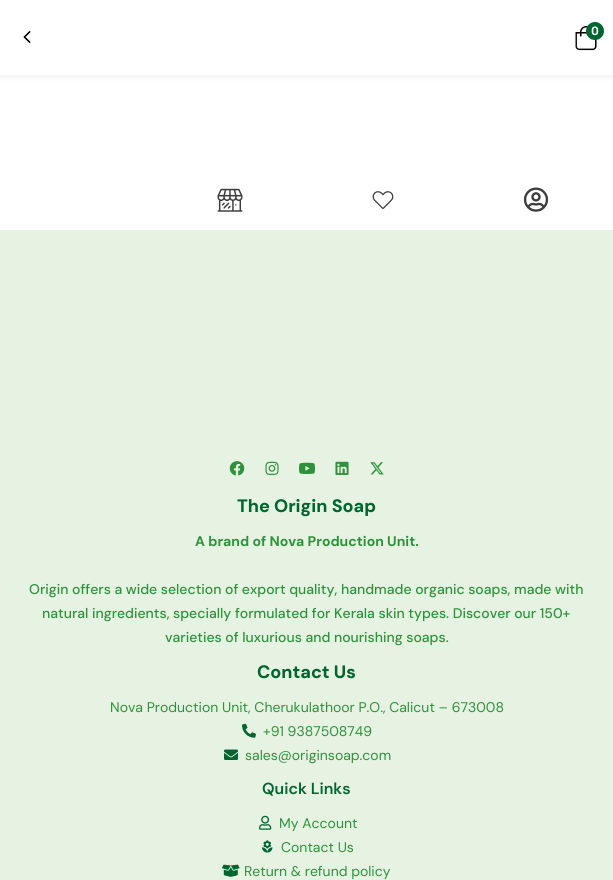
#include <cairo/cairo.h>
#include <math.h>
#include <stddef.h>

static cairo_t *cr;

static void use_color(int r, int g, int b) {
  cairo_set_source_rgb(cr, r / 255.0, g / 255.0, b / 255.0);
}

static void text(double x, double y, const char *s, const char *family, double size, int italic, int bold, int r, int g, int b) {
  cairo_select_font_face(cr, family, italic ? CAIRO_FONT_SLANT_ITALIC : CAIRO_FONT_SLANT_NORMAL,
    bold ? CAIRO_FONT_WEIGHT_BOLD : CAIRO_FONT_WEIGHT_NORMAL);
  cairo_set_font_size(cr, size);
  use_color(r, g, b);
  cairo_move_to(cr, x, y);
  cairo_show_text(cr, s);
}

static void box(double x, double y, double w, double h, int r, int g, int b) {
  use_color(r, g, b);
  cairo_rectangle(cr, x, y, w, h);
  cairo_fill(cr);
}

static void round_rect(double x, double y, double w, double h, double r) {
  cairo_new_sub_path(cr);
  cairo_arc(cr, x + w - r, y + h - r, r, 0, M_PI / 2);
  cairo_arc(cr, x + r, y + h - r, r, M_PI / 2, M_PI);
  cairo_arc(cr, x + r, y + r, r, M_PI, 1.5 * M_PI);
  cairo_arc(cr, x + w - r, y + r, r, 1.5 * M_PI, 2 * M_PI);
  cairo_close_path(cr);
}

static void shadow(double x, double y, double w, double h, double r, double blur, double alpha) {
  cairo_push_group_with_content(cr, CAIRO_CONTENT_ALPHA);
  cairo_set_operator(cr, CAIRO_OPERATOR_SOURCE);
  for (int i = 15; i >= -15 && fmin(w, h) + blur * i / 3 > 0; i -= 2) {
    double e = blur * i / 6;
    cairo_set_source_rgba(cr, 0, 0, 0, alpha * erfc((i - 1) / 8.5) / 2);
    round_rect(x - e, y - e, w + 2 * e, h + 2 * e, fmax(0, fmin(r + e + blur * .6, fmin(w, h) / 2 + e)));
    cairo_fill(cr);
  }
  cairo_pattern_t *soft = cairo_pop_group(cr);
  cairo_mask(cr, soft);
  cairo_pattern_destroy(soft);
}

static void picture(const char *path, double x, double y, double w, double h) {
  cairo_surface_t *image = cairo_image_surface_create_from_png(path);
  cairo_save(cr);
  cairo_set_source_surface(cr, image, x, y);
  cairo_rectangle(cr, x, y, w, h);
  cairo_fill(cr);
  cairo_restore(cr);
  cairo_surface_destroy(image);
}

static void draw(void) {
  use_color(255, 255, 255);
  cairo_paint(cr);
  use_color(0, 0, 0);
  shadow(0, 0, 613, 75, 0, 4, 0.1);
  box(0, 0, 613, 75, 255, 255, 255);
  picture("img_01.png", 23, 31, 8, 12);
  picture("img_02.png", 575, 26, 22, 25);
  use_color(0, 101, 46);
  cairo_arc(cr, 595, 31, 9, 0, 2 * M_PI);
  cairo_fill(cr);
  picture("img_03.png", 217, 188, 26, 24);
  picture("img_04.png", 372, 191, 22, 18);
  picture("img_05.png", 523, 187, 26, 25);
  box(0, 230, 613, 650, 231, 243, 226);
  picture("img_06.png", 229, 461, 16, 15);
  picture("img_07.png", 265, 461, 14, 14);
  picture("img_08.png", 299, 462, 16, 12);
  picture("img_09.png", 335, 461, 14, 14);
  picture("img_10.png", 370, 462, 14, 13);
  picture("img_11.png", 242, 723, 14, 15);
  picture("img_12.png", 224, 749, 14, 11);
  picture("img_13.png", 259, 815, 13, 15);
  picture("img_14.png", 262, 840, 11, 13);
  picture("img_15.png", 222, 864, 18, 13);
  text(591, 35, "0", "Rubik Medium", 12, 0, 0, 255, 255, 255);
  text(237, 512, "The Origin Soap", "DM Sans ExtraBold", 18, 0, 0, 0, 101, 46);
  text(195, 546, "A brand of Nova Production Unit.", "DM Sans", 14, 0, 1, 45, 146, 59);
  text(29, 594, "Origin offers a wide selection of export quality, handmade organic soaps, made with", "DM Sans Medium", 14, 0, 0, 45, 146, 59);
  text(42, 618, "natural ingredients, specially formulated for Kerala skin types. Discover our 150+", "DM Sans Medium", 14, 0, 0, 45, 146, 59);
  text(165, 642, "varieties of luxurious and nourishing soaps.", "DM Sans Medium", 14, 0, 0, 45, 146, 59);
  text(257, 678, "Contact Us", "DM Sans ExtraBold", 18, 0, 0, 0, 101, 46);
  text(110, 712, "Nova Production Unit, Cherukulathoor P.O., Calicut – 673008", "DM Sans", 14, 0, 0, 45, 146, 59);
  text(263, 736, "+91 9387508749", "DM Sans", 14, 0, 0, 45, 146, 59);
  text(245, 760, "sales@originsoap.com", "DM Sans", 14, 0, 0, 45, 146, 59);
  text(262, 794, "Quick Links", "DM Sans SemiBold", 16, 0, 0, 0, 101, 46);
  text(279, 828, "My Account", "DM Sans", 14, 0, 0, 45, 146, 59);
  text(281, 852, "Contact Us", "DM Sans", 14, 0, 0, 45, 146, 59);
  text(244, 876, "Return & refund policy", "DM Sans", 14, 0, 0, 45, 146, 59);
}

int main(void) {
  cairo_surface_t *surface = cairo_image_surface_create(CAIRO_FORMAT_RGB24, 613, 880);
  cr = cairo_create(surface);
  cairo_font_options_t *options = cairo_font_options_create();
  cairo_font_options_set_hint_metrics(options, CAIRO_HINT_METRICS_OFF);
  cairo_font_options_set_hint_style(options, CAIRO_HINT_STYLE_NONE);
  cairo_set_font_options(cr, options);
  cairo_set_miter_limit(cr, 4);
  draw();
  cairo_surface_write_to_png(surface, "out.png");
  cairo_font_options_destroy(options);
  cairo_destroy(cr);
  cairo_surface_destroy(surface);
  return 0;
}
